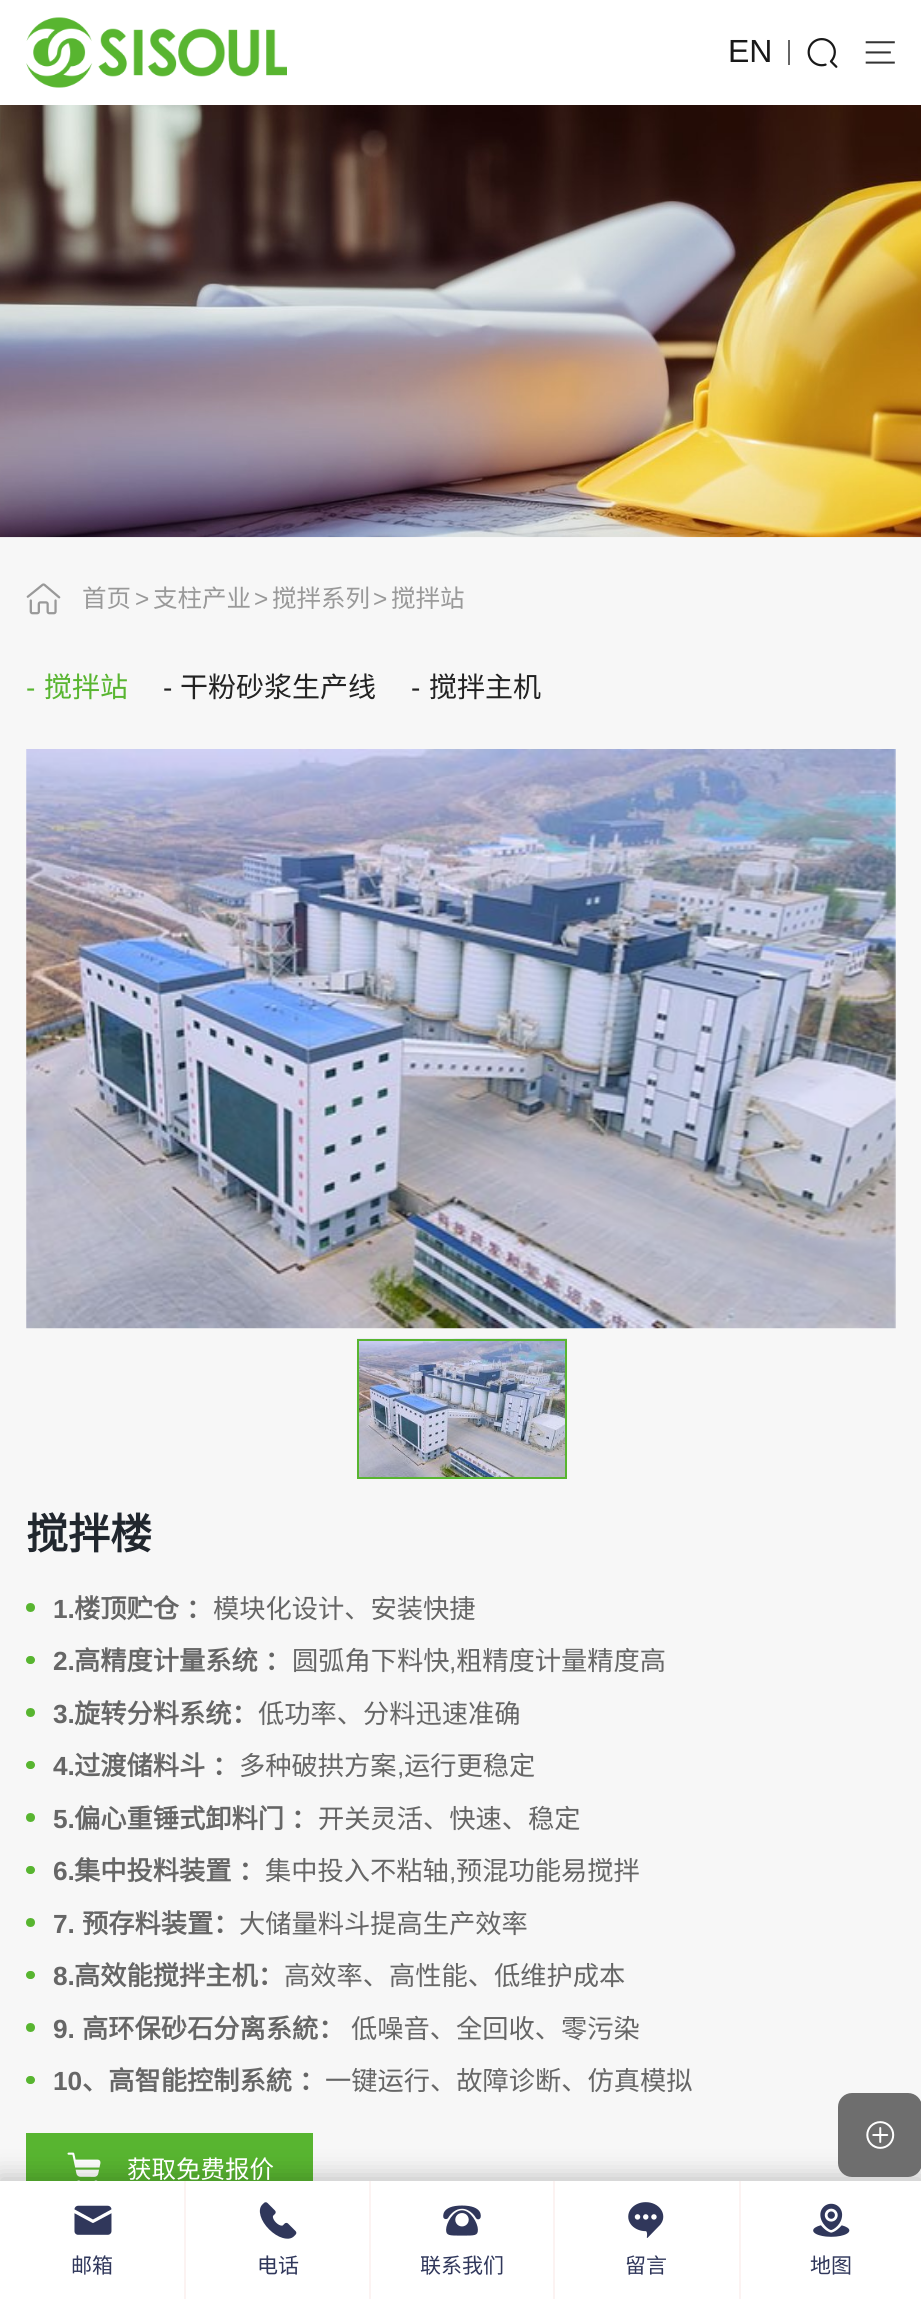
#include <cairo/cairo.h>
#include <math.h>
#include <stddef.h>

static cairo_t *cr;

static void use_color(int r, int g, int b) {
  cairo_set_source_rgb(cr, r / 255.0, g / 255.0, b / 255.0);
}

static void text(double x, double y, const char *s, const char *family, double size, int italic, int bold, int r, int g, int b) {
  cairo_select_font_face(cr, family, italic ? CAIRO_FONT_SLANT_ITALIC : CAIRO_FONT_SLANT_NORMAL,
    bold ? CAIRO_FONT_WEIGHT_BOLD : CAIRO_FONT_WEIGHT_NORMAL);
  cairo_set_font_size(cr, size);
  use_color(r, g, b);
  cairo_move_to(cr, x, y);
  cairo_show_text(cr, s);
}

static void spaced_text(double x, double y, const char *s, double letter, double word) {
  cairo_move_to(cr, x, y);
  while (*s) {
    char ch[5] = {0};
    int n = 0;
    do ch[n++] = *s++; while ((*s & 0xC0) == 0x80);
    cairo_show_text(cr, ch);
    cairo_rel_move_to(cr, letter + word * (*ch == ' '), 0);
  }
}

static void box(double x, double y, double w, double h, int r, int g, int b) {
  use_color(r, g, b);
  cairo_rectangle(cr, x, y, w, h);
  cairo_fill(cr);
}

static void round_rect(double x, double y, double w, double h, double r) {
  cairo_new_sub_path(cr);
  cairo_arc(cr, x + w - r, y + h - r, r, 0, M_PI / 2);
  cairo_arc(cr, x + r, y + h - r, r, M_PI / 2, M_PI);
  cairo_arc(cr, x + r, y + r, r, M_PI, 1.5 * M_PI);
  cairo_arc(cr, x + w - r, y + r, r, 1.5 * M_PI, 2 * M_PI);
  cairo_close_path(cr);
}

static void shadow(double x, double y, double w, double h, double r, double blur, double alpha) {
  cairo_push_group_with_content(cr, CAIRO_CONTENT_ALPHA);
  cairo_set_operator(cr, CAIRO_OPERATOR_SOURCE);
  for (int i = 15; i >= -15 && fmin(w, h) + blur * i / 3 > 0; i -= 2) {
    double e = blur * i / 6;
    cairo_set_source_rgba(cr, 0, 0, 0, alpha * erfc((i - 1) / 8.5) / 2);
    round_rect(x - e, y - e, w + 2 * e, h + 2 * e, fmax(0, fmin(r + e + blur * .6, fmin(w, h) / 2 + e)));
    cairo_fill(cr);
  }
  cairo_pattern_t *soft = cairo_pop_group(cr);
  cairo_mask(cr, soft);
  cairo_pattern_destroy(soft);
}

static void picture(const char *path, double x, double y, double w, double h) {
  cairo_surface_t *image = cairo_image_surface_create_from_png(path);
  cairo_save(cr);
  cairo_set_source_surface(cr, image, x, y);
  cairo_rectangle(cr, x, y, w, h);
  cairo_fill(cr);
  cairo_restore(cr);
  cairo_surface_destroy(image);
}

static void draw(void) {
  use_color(255, 255, 255);
  cairo_paint(cr);
  picture("img_01.png", 26, 17, 261, 71);
  box(788, 40, 2, 25, 102, 102, 102);
  picture("img_02.png", 807, 38, 31, 30);
  picture("img_03.png", 865, 41, 30, 23);
  box(0, 537, 921, 1644, 247, 247, 247);
  picture("img_04.png", 0, 105, 921, 433);
  picture("img_05.png", 26, 583, 35, 32);
  picture("img_06.png", 26, 749, 870, 580);
  picture("img_07.png", 357, 1338, 210, 139);
  cairo_rectangle(cr, 358, 1340, 208, 138);
  use_color(88, 181, 48);
  cairo_stroke(cr);
  cairo_arc(cr, 30.5, 1607.5, 4.5, 0, 2 * M_PI);
  cairo_fill(cr);
  round_rect(26, 1656, 9, 8, 4);
  cairo_fill(cr);
  cairo_arc(cr, 30.5, 1712.5, 4.5, 0, 2 * M_PI);
  cairo_fill(cr);
  round_rect(26, 1761, 9, 8, 4);
  cairo_fill(cr);
  cairo_arc(cr, 30.5, 1817.5, 4.5, 0, 2 * M_PI);
  cairo_fill(cr);
  round_rect(26, 1866, 9, 8, 4);
  cairo_fill(cr);
  cairo_arc(cr, 30.5, 1922.5, 4.5, 0, 2 * M_PI);
  cairo_fill(cr);
  round_rect(26, 1971, 9, 8, 4);
  cairo_fill(cr);
  cairo_arc(cr, 30.5, 2027.5, 4.5, 0, 2 * M_PI);
  cairo_fill(cr);
  round_rect(26, 2076, 9, 8, 4);
  cairo_fill(cr);
  box(26, 2133, 287, 48, 88, 181, 48);
  picture("img_08.png", 67, 2152, 34, 29);
  use_color(0, 0, 0);
  shadow(-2, 2175, 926, 123, 0, 12, 0.2);
  use_color(110, 110, 110);
  round_rect(838, 2093, 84, 84, 14);
  cairo_fill(cr);
  picture("img_09.png", 866, 2121, 29, 28);
  box(0, 2181, 921, 118, 255, 255, 255);
  picture("img_10.png", 74, 2205, 38, 30);
  box(184, 2181, 2, 118, 252, 243, 242);
  picture("img_11.png", 259, 2202, 38, 37);
  box(369, 2181, 2, 118, 252, 243, 242);
  picture("img_12.png", 443, 2205, 38, 31);
  box(553, 2181, 2, 118, 252, 243, 242);
  picture("img_13.png", 628, 2202, 36, 36);
  box(739, 2181, 2, 118, 252, 243, 242);
  picture("img_14.png", 813, 2203, 37, 34);
  text(728, 62, "EN", "Liberation Sans", 32, 0, 0, 25, 25, 25);
  text(82, 607, "首页", "Noto Sans CJK SC", 24.5, 0, 0, 153, 153, 153);
  text(135, 607, ">", "Liberation Sans", 24.5, 0, 0, 153, 153, 153);
  text(153, 607, "支柱产业", "Noto Sans CJK SC", 24.5, 0, 0, 153, 153, 153);
  text(254, 607, ">", "Liberation Sans", 24.5, 0, 0, 153, 153, 153);
  text(272, 607, "搅拌系列", "Noto Sans CJK SC", 24.5, 0, 0, 153, 153, 153);
  text(373, 607, ">", "Liberation Sans", 24.5, 0, 0, 153, 153, 153);
  text(391, 607, "搅拌站", "Noto Sans CJK SC", 24.5, 0, 0, 153, 153, 153);
  text(26, 697, "-", "Liberation Sans", 28, 0, 0, 88, 181, 48);
  text(44, 697, "搅拌站", "Noto Sans CJK SC", 28, 0, 0, 88, 181, 48);
  text(163, 697, "-", "Liberation Sans", 28, 0, 0, 34, 34, 34);
  text(180, 697, "干粉砂浆生产线", "Noto Sans CJK SC", 28, 0, 0, 34, 34, 34);
  text(411, 697, "-", "Liberation Sans", 28, 0, 0, 34, 34, 34);
  text(429, 697, "搅拌主机", "Noto Sans CJK SC", 28, 0, 0, 34, 34, 34);
  text(26, 1549, "搅拌楼", "Noto Sans CJK SC", 42, 0, 1, 33, 39, 46);
  text(53, 1618, "1.", "Liberation Sans", 26.25, 0, 1, 102, 102, 102);
  cairo_select_font_face(cr, "Noto Sans CJK SC", CAIRO_FONT_SLANT_NORMAL, CAIRO_FONT_WEIGHT_BOLD);
  spaced_text(74, 1618, "楼顶贮仓 ：", 0, 1);
  text(213, 1618, "模块化设计、安装快捷", "Noto Sans CJK SC", 26.25, 0, 0, 102, 102, 102);
  text(53, 1670, "2.", "Liberation Sans", 26.25, 0, 1, 102, 102, 102);
  cairo_select_font_face(cr, "Noto Sans CJK SC", CAIRO_FONT_SLANT_NORMAL, CAIRO_FONT_WEIGHT_BOLD);
  spaced_text(74, 1670, "高精度计量系统 ：", 0, 1);
  text(292, 1670, "圆弧角下料快", "Noto Sans CJK SC", 26.25, 0, 0, 102, 102, 102);
  text(456, 1670, "粗精度计量精度高", "Noto Sans CJK SC", 26.25, 0, 0, 102, 102, 102);
  text(449, 1670, ",", "Liberation Sans", 26.25, 0, 0, 102, 102, 102);
  text(53, 1723, "3.", "Liberation Sans", 26.25, 0, 1, 102, 102, 102);
  text(74, 1723, "旋转分料系统：", "Noto Sans CJK SC", 26.25, 0, 1, 102, 102, 102);
  text(258, 1723, "低功率、分料迅速准确", "Noto Sans CJK SC", 26.25, 0, 0, 102, 102, 102);
  text(53, 1775, "4.", "Liberation Sans", 26.25, 0, 1, 102, 102, 102);
  cairo_select_font_face(cr, "Noto Sans CJK SC", CAIRO_FONT_SLANT_NORMAL, CAIRO_FONT_WEIGHT_BOLD);
  spaced_text(74, 1775, "过渡储料斗 ：", 0, 1);
  text(239, 1775, "多种破拱方案", "Noto Sans CJK SC", 26.25, 0, 0, 102, 102, 102);
  text(404, 1775, "运行更稳定", "Noto Sans CJK SC", 26.25, 0, 0, 102, 102, 102);
  text(397, 1775, ",", "Liberation Sans", 26.25, 0, 0, 102, 102, 102);
  text(53, 1828, "5.", "Liberation Sans", 26.25, 0, 1, 102, 102, 102);
  cairo_select_font_face(cr, "Noto Sans CJK SC", CAIRO_FONT_SLANT_NORMAL, CAIRO_FONT_WEIGHT_BOLD);
  spaced_text(74, 1828, "偏心重锤式卸料门 ：", 0, 1);
  text(318, 1828, "开关灵活、快速、稳定", "Noto Sans CJK SC", 26.25, 0, 0, 102, 102, 102);
  text(53, 1880, "6.", "Liberation Sans", 26.25, 0, 1, 102, 102, 102);
  cairo_select_font_face(cr, "Noto Sans CJK SC", CAIRO_FONT_SLANT_NORMAL, CAIRO_FONT_WEIGHT_BOLD);
  spaced_text(74, 1880, "集中投料装置 ：", 0, 1);
  text(265, 1880, "集中投入不粘轴", "Noto Sans CJK SC", 26.25, 0, 0, 102, 102, 102);
  text(456, 1880, "预混功能易搅拌", "Noto Sans CJK SC", 26.25, 0, 0, 102, 102, 102);
  text(449, 1880, ",", "Liberation Sans", 26.25, 0, 0, 102, 102, 102);
  text(53, 1933, "7.", "Liberation Sans", 26.25, 0, 1, 102, 102, 102);
  text(82, 1933, "预存料装置：", "Noto Sans CJK SC", 26.25, 0, 1, 102, 102, 102);
  text(239, 1933, "大储量料斗提高生产效率", "Noto Sans CJK SC", 26.25, 0, 0, 102, 102, 102);
  text(53, 1985, "8.", "Liberation Sans", 26.25, 0, 1, 102, 102, 102);
  text(74, 1985, "高效能搅拌主机：", "Noto Sans CJK SC", 26.25, 0, 1, 102, 102, 102);
  text(284, 1985, "高效率、高性能、低维护成本", "Noto Sans CJK SC", 26.25, 0, 0, 102, 102, 102);
  text(53, 2038, "9.", "Liberation Sans", 26.25, 0, 1, 102, 102, 102);
  text(82, 2038, "高环保砂石分离系統：", "Noto Sans CJK SC", 26.25, 0, 1, 102, 102, 102);
  text(351, 2038, "低噪音、全回收、零污染", "Noto Sans CJK SC", 26.25, 0, 0, 102, 102, 102);
  text(53, 2090, "10", "Liberation Sans", 26.25, 0, 1, 102, 102, 102);
  cairo_select_font_face(cr, "Noto Sans CJK SC", CAIRO_FONT_SLANT_NORMAL, CAIRO_FONT_WEIGHT_BOLD);
  spaced_text(82, 2090, "、高智能控制系統 ：", 0, 1);
  text(325, 2090, "一键运行、故障诊断、仿真模拟", "Noto Sans CJK SC", 26.25, 0, 0, 102, 102, 102);
  text(127, 2178, "获取免费报价", "Noto Sans CJK SC", 24.5, 0, 0, 255, 255, 255);
  text(71, 2273, "邮箱", "Noto Sans CJK SC", 21, 0, 0, 48, 55, 91);
  text(257, 2273, "电话", "Noto Sans CJK SC", 21, 0, 0, 48, 55, 91);
  text(420, 2273, "联系我们", "Noto Sans CJK SC", 21, 0, 0, 48, 55, 91);
  text(625, 2273, "留言", "Noto Sans CJK SC", 21, 0, 0, 48, 55, 91);
  text(810, 2273, "地图", "Noto Sans CJK SC", 21, 0, 0, 48, 55, 91);
}

int main(void) {
  cairo_surface_t *surface = cairo_image_surface_create(CAIRO_FORMAT_RGB24, 921, 2299);
  cr = cairo_create(surface);
  cairo_font_options_t *options = cairo_font_options_create();
  cairo_font_options_set_hint_metrics(options, CAIRO_HINT_METRICS_OFF);
  cairo_font_options_set_hint_style(options, CAIRO_HINT_STYLE_NONE);
  cairo_set_font_options(cr, options);
  cairo_set_miter_limit(cr, 4);
  draw();
  cairo_surface_write_to_png(surface, "out.png");
  cairo_font_options_destroy(options);
  cairo_destroy(cr);
  cairo_surface_destroy(surface);
  return 0;
}
